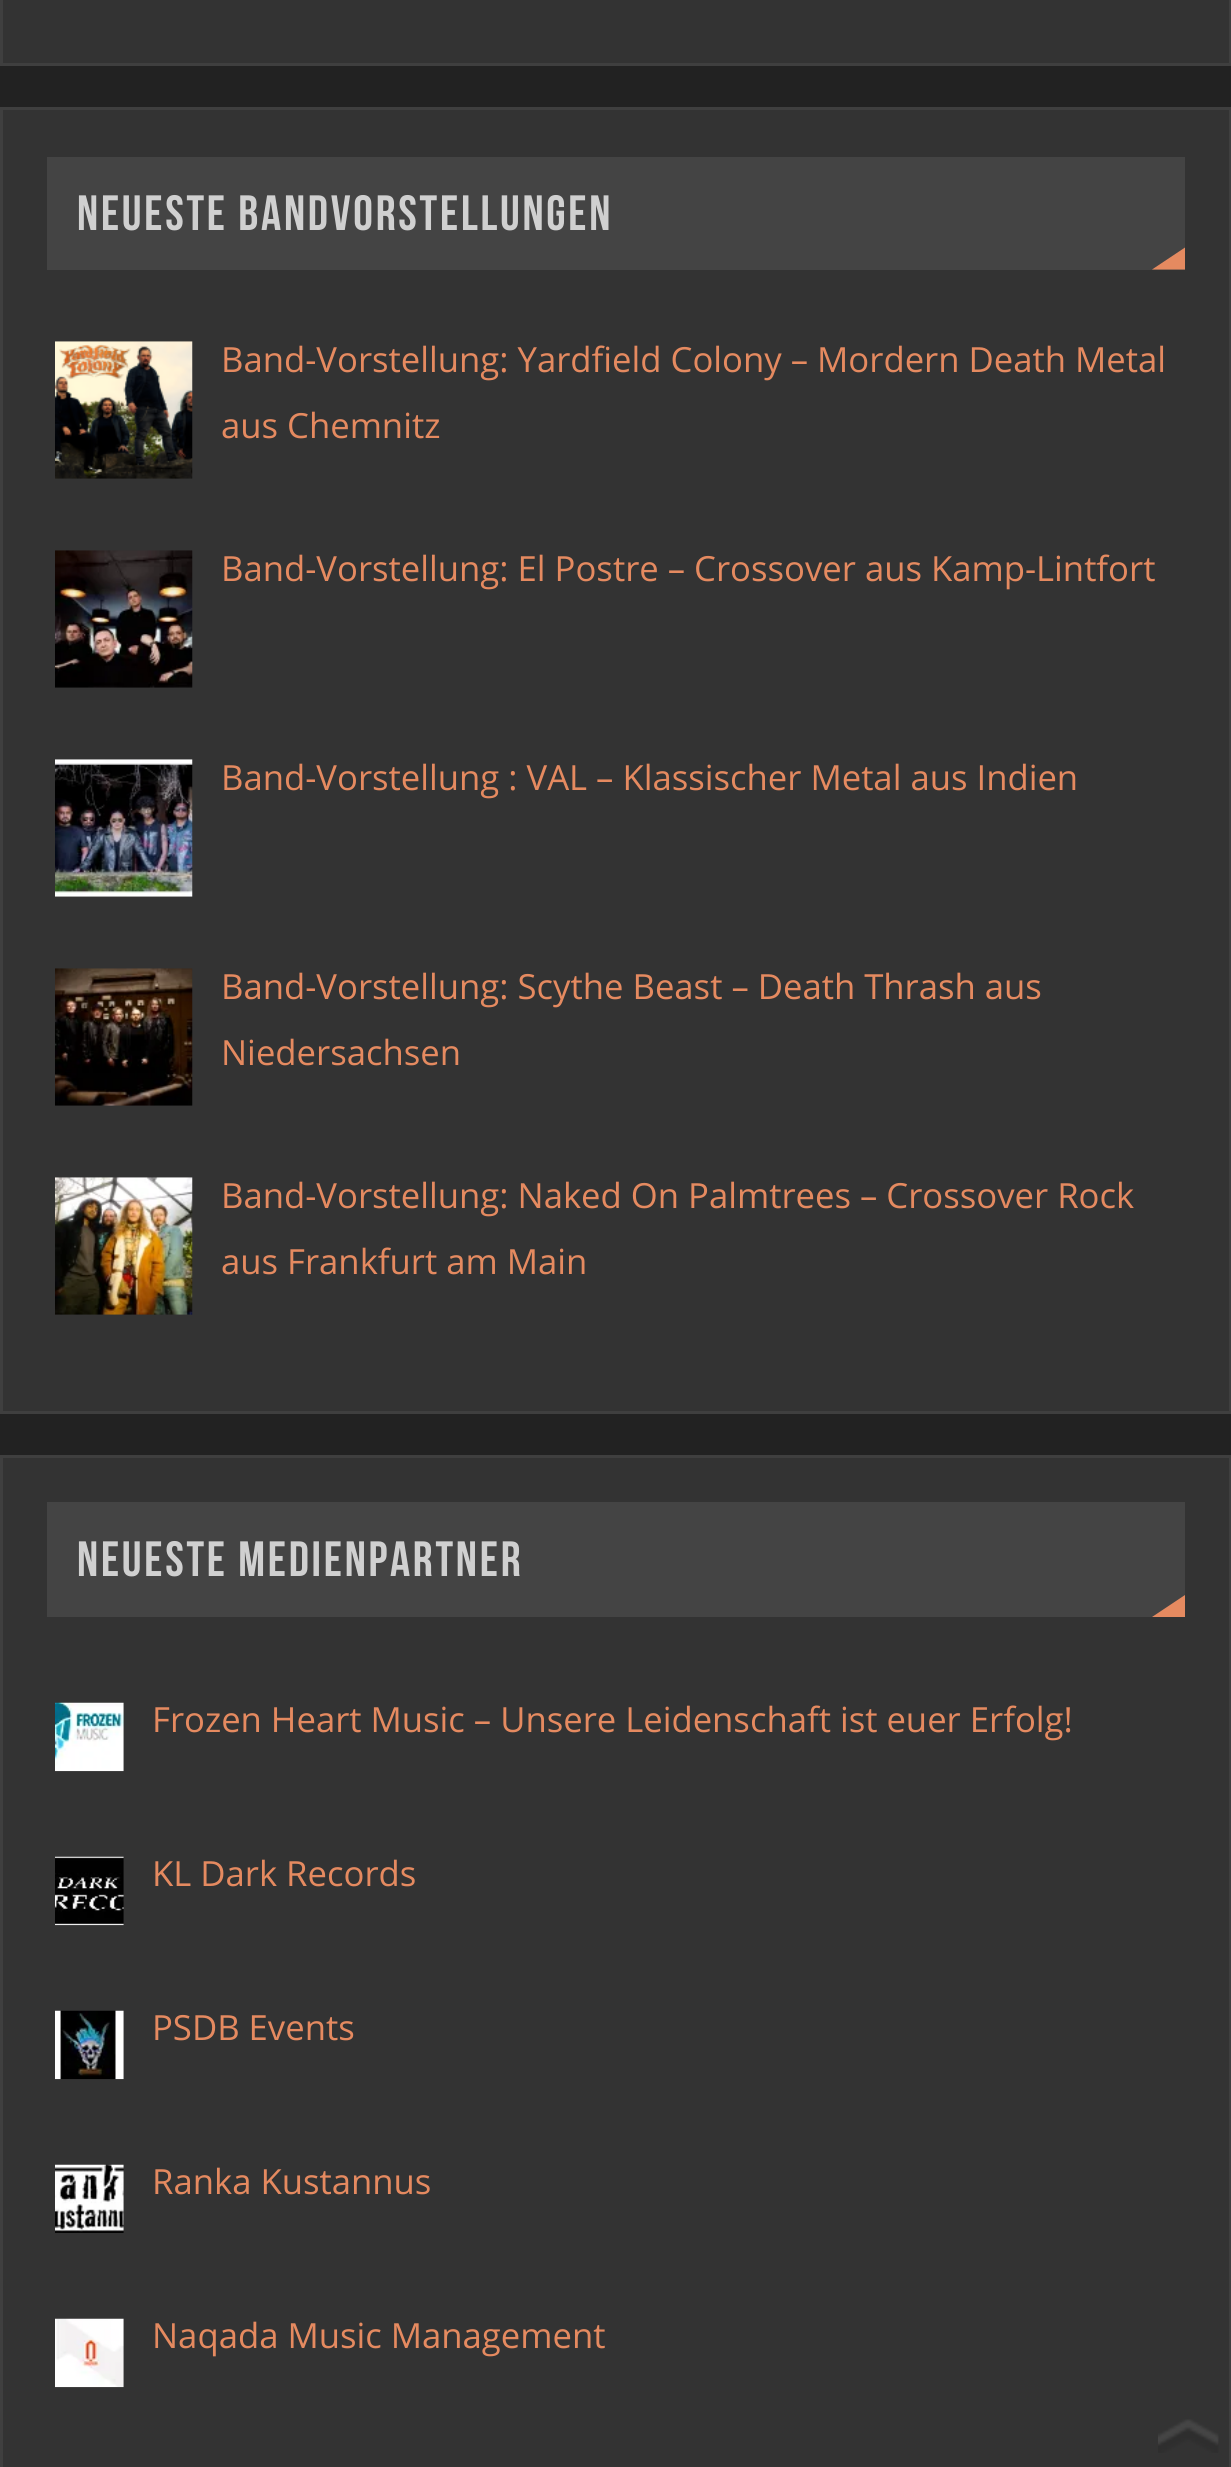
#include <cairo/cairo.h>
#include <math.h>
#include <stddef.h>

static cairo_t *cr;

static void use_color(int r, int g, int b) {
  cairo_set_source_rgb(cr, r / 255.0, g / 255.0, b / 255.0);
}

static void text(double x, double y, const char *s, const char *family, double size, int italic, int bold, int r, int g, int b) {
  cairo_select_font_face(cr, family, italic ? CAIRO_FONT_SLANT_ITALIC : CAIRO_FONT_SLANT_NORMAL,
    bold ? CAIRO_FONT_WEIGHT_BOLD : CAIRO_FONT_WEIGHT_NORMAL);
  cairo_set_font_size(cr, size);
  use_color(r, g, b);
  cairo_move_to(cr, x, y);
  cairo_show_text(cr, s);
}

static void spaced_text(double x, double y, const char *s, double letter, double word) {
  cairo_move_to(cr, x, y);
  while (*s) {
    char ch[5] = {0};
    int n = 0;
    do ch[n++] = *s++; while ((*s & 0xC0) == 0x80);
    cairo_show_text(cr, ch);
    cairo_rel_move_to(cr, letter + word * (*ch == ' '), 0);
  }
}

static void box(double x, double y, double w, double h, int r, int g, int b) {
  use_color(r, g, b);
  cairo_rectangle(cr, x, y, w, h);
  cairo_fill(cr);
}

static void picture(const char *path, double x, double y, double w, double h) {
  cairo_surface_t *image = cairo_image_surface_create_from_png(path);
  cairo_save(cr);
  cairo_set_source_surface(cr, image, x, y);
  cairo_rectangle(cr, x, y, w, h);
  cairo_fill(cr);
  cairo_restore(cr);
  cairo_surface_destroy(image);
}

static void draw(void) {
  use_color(34, 34, 34);
  cairo_paint(cr);
  use_color(51, 51, 51);
  cairo_rectangle(cr, 1.5, -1.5, 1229, 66);
  cairo_fill_preserve(cr);
  use_color(63, 63, 63);
  cairo_set_line_width(cr, 3);
  cairo_stroke(cr);
  use_color(51, 51, 51);
  cairo_rectangle(cr, 1.5, 108.5, 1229, 1304);
  cairo_fill_preserve(cr);
  use_color(63, 63, 63);
  cairo_stroke(cr);
  box(47, 157, 1138, 113, 68, 68, 68);
  use_color(229, 138, 96);
  cairo_new_path(cr);
  cairo_move_to(cr, 1185, 269.5);
  cairo_line_to(cr, 1152, 269.5);
  cairo_line_to(cr, 1185, 247.5);
  cairo_close_path(cr);
  cairo_fill(cr);
  picture("img_01.png", 55, 341, 138, 138);
  picture("img_02.png", 55, 550, 138, 138);
  picture("img_03.png", 55, 759, 138, 138);
  picture("img_04.png", 55, 968, 138, 138);
  picture("img_05.png", 55, 1177, 138, 138);
  use_color(51, 51, 51);
  cairo_rectangle(cr, 1.5, 1456.5, 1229, 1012);
  cairo_fill_preserve(cr);
  use_color(63, 63, 63);
  cairo_stroke(cr);
  box(47, 1502, 1138, 115, 68, 68, 68);
  use_color(229, 138, 96);
  cairo_new_path(cr);
  cairo_move_to(cr, 1185, 1617);
  cairo_line_to(cr, 1152, 1617);
  cairo_line_to(cr, 1185, 1595);
  cairo_close_path(cr);
  cairo_fill(cr);
  picture("img_06.png", 55, 1702, 69, 70);
  picture("img_07.png", 55, 1856, 69, 70);
  picture("img_08.png", 55, 2010, 69, 70);
  picture("img_09.png", 55, 2164, 69, 69);
  picture("img_10.png", 55, 2318, 69, 70);
  picture("img_11.png", 1158, 2419, 61, 34);
  cairo_select_font_face(cr, "Bebas Neue", CAIRO_FONT_SLANT_NORMAL, CAIRO_FONT_WEIGHT_NORMAL);
  cairo_set_font_size(cr, 49.5);
  use_color(208, 208, 208);
  spaced_text(77, 230, "NEUESTE BANDVORSTELLUNGEN", 2.75, 0);
  text(221, 372, "Band-Vorstellung: Yardfield Colony – Mordern Death Metal", "Open Sans", 34.65, 0, 0, 229, 138, 96);
  text(221, 438, "aus Chemnitz", "Open Sans", 34.65, 0, 0, 229, 138, 96);
  text(221, 581, "Band-Vorstellung: El Postre – Crossover aus Kamp-Lintfort", "Open Sans", 34.65, 0, 0, 229, 138, 96);
  text(221, 790, "Band-Vorstellung : VAL – Klassischer Metal aus Indien", "Open Sans", 34.65, 0, 0, 229, 138, 96);
  text(221, 999, "Band-Vorstellung: Scythe Beast – Death Thrash aus", "Open Sans", 34.65, 0, 0, 229, 138, 96);
  text(221, 1065, "Niedersachsen", "Open Sans", 34.65, 0, 0, 229, 138, 96);
  text(221, 1208, "Band-Vorstellung: Naked On Palmtrees – Crossover Rock", "Open Sans", 34.65, 0, 0, 229, 138, 96);
  text(221, 1274, "aus Frankfurt am Main", "Open Sans", 34.65, 0, 0, 229, 138, 96);
  cairo_select_font_face(cr, "Bebas Neue", CAIRO_FONT_SLANT_NORMAL, CAIRO_FONT_WEIGHT_NORMAL);
  cairo_set_font_size(cr, 49.5);
  use_color(208, 208, 208);
  spaced_text(77, 1576, "NEUESTE MEDIENPARTNER", 2.75, 0);
  text(152, 1732, "Frozen Heart Music – Unsere Leidenschaft ist euer Erfolg!", "Open Sans", 34.65, 0, 0, 229, 138, 96);
  text(152, 1886, "KL Dark Records", "Open Sans", 34.65, 0, 0, 229, 138, 96);
  text(152, 2040, "PSDB Events", "Open Sans", 34.65, 0, 0, 229, 138, 96);
  text(152, 2194, "Ranka Kustannus", "Open Sans", 34.65, 0, 0, 229, 138, 96);
  text(152, 2348, "Naqada Music Management", "Open Sans", 34.65, 0, 0, 229, 138, 96);
}

int main(void) {
  cairo_surface_t *surface = cairo_image_surface_create(CAIRO_FORMAT_RGB24, 1231, 2467);
  cr = cairo_create(surface);
  cairo_font_options_t *options = cairo_font_options_create();
  cairo_font_options_set_hint_metrics(options, CAIRO_HINT_METRICS_OFF);
  cairo_font_options_set_hint_style(options, CAIRO_HINT_STYLE_NONE);
  cairo_set_font_options(cr, options);
  cairo_set_miter_limit(cr, 4);
  draw();
  cairo_surface_write_to_png(surface, "out.png");
  cairo_font_options_destroy(options);
  cairo_destroy(cr);
  cairo_surface_destroy(surface);
  return 0;
}
